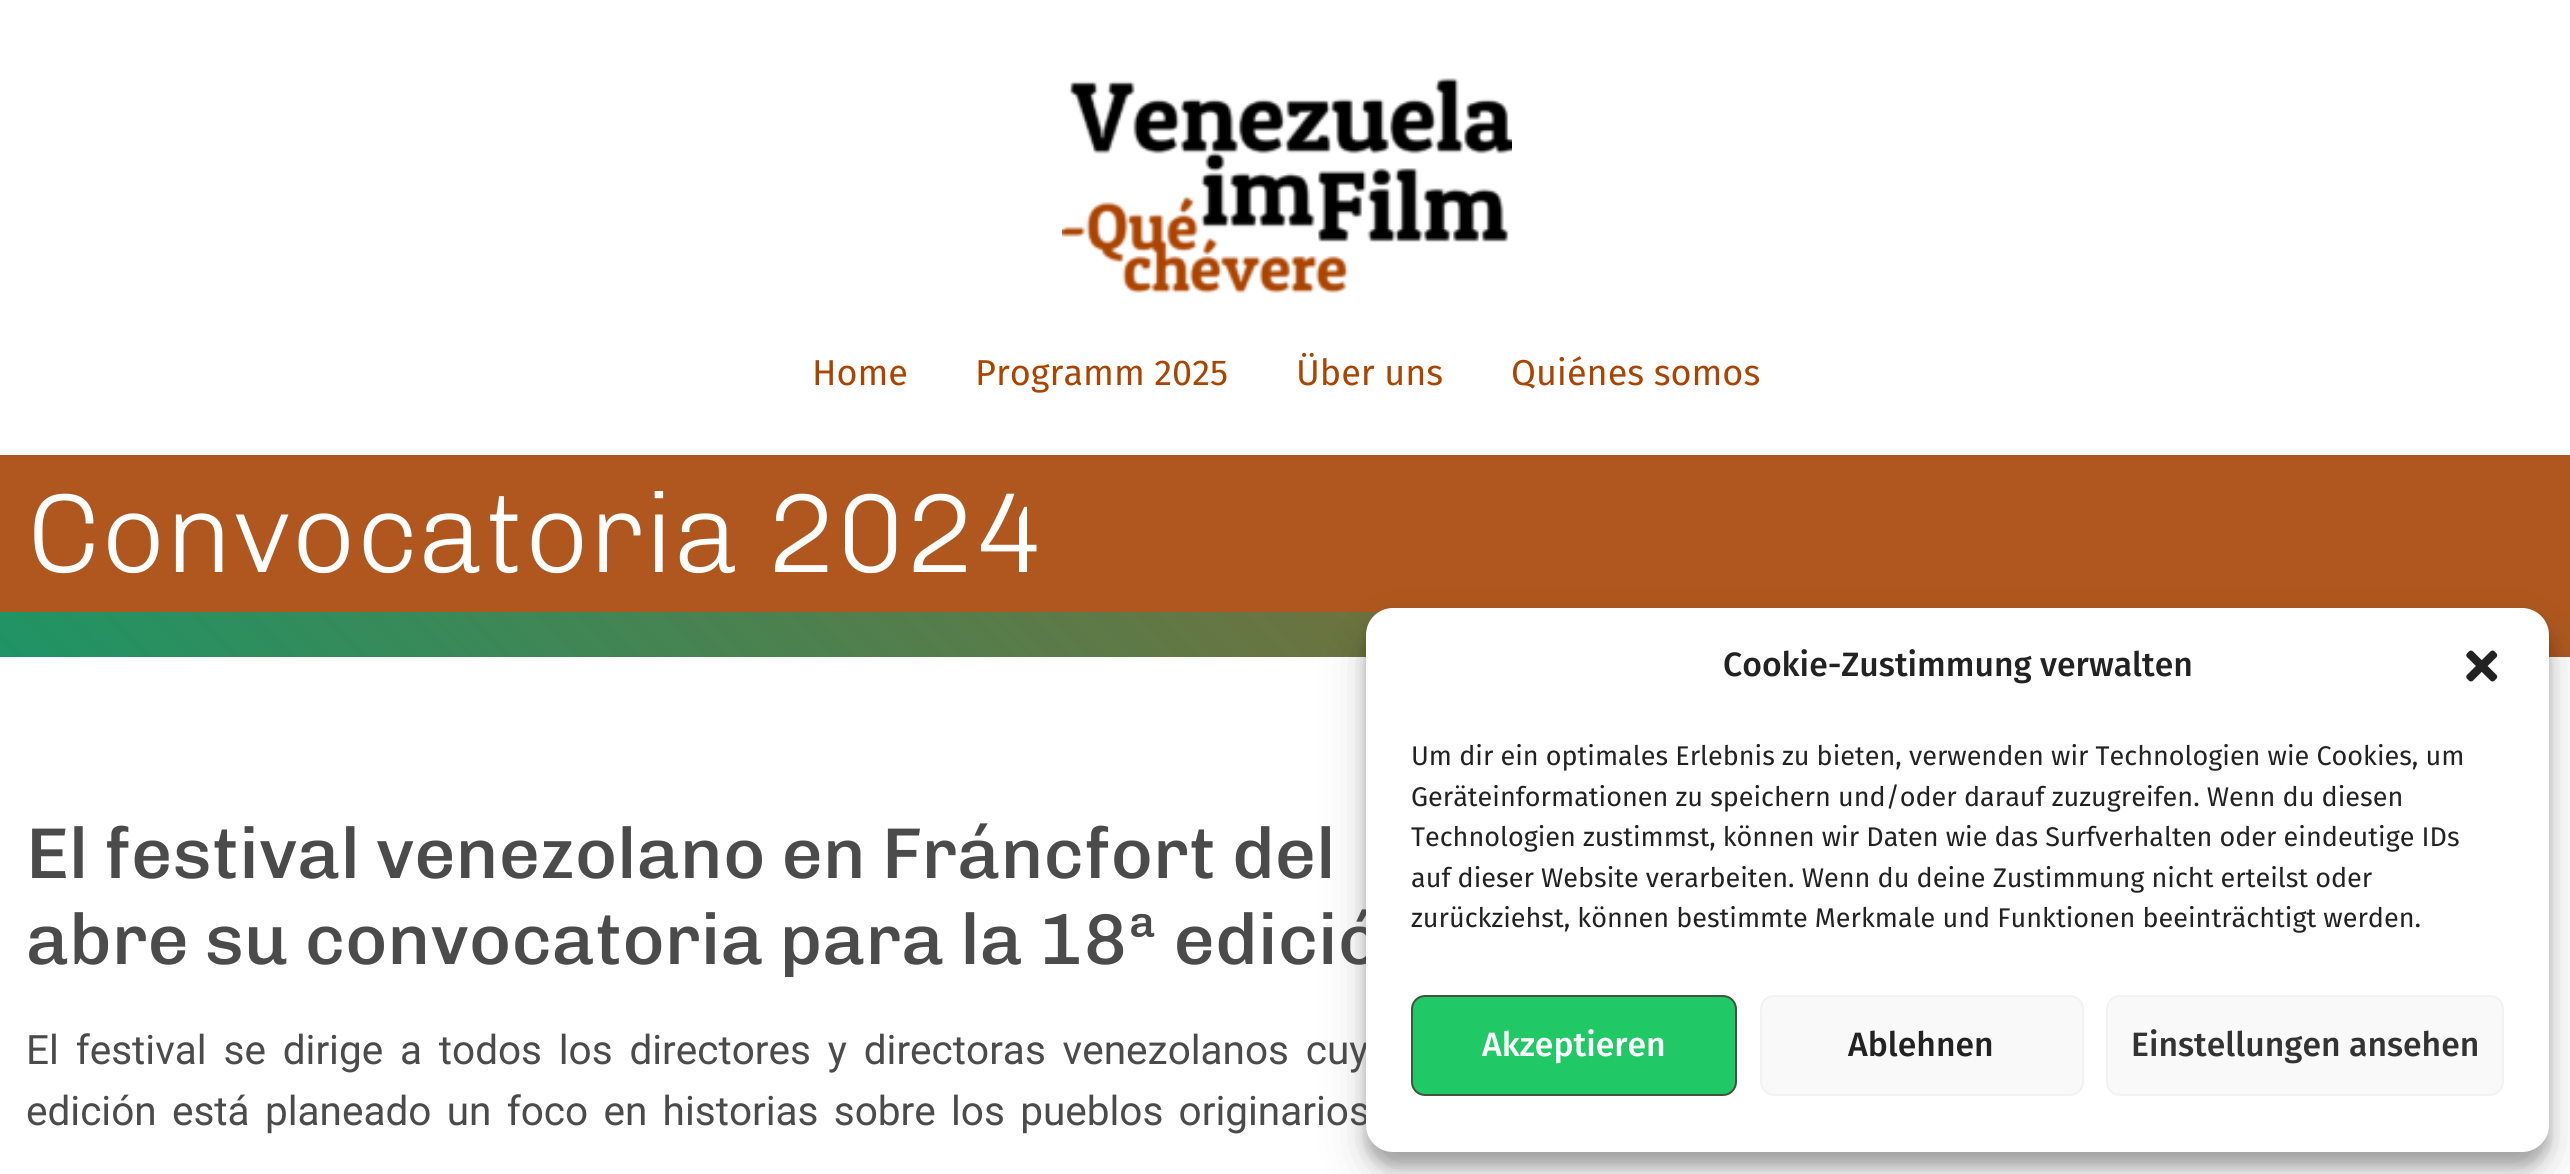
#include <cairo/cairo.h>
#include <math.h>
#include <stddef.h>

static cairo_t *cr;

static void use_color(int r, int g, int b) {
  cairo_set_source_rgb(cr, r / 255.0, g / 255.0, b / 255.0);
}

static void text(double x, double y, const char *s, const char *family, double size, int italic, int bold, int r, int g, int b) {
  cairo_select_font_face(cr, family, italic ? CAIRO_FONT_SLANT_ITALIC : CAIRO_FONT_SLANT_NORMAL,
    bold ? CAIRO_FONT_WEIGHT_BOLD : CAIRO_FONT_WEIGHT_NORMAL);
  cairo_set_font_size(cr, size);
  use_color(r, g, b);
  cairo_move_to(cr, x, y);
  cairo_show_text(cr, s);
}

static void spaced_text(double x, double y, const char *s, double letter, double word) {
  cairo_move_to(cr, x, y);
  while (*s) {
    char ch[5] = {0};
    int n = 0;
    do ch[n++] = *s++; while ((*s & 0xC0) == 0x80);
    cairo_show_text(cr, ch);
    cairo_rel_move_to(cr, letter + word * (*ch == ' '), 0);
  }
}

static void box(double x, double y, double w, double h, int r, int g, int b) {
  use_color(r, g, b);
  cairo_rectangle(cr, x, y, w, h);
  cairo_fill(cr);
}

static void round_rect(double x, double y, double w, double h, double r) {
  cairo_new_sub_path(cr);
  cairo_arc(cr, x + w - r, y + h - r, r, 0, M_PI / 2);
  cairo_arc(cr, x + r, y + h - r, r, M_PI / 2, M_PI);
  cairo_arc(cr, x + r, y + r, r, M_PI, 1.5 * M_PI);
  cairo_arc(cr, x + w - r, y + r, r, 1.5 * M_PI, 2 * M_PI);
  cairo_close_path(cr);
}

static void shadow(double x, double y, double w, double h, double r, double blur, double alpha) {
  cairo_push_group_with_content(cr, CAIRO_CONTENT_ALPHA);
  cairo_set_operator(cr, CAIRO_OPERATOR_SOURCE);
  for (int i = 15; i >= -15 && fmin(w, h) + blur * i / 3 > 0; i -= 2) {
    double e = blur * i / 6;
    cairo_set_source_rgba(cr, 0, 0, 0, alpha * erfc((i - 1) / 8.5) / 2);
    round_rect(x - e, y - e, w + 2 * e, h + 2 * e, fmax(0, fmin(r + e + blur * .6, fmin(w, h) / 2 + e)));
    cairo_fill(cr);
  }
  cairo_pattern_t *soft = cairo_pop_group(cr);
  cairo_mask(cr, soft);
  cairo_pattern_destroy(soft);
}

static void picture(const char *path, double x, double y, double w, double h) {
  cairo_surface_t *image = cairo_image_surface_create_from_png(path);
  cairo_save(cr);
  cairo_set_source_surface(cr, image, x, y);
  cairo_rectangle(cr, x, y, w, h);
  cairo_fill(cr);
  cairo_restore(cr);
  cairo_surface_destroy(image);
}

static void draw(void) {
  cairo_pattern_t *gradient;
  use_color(255, 255, 255);
  cairo_paint(cr);
  picture("img_01.png", 1062, 78, 450, 216);
  box(0, 455, 2570, 157, 176, 87, 31);
  gradient = cairo_pattern_create_linear(1940, -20, 632, 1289);
  cairo_pattern_add_color_stop_rgba(gradient, 0, 0.69, 0.341, 0.122, 1);
  cairo_pattern_add_color_stop_rgba(gradient, 1, 0.122, 0.58, 0.396, 1);
  cairo_set_source(cr, gradient);
  cairo_pattern_destroy(gradient);
  cairo_rectangle(cr, 0, 612, 2570, 45);
  cairo_fill(cr);
  use_color(0, 0, 0);
  shadow(1366, 621, 1183, 545, 27, 7, 0.23);
  shadow(1366, 630, 1183, 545, 27, 22.5, 0.19);
  text(812, 385, "Home", "Fira Sans", 36, 0, 0, 170, 68, 0);
  text(975, 385, "Programm 2025", "Fira Sans", 36, 0, 0, 170, 68, 0);
  text(1296, 385, "Über uns", "Fira Sans", 36, 0, 0, 170, 68, 0);
  text(1511, 385, "Quiénes somos", "Fira Sans", 36, 0, 0, 170, 68, 0);
  text(26, 572, "Convocatoria 2024", "Chivo ExtraLight", 112.5, 0, 0, 255, 255, 255);
  text(26, 878, "El festival venezolano en Fráncfort del", "Chivo Medium", 72, 0, 0, 75, 75, 75);
  text(26, 964, "abre su convocatoria para la 18ª edició", "Chivo Medium", 72, 0, 0, 75, 75, 75);
  cairo_select_font_face(cr, "Roboto", CAIRO_FONT_SLANT_NORMAL, CAIRO_FONT_WEIGHT_NORMAL);
  cairo_set_font_size(cr, 40.5);
  spaced_text(26, 1064, "El festival se dirige a todos los directores y directoras venezolanos cuy", 0, 6.75);
  spaced_text(26, 1125, "edición está planeado un foco en historias sobre los pueblos originarios", 0, 5.25);
  use_color(255, 255, 255);
  round_rect(1366, 608, 1183, 544, 27);
  cairo_fill(cr);
  text(1723, 676, "Cookie-Zustimmung verwalten", "Fira Sans Medium", 33.75, 0, 0, 34, 34, 34);
  picture("img_02.png", 2466, 650, 32, 32);
  text(1411, 765, "Um dir ein optimales Erlebnis zu bieten, verwenden wir Technologien wie Cookies, um", "Fira Sans", 27, 0, 0, 34, 34, 34);
  text(1411, 806, "Geräteinformationen zu speichern und/oder darauf zuzugreifen. Wenn du diesen", "Fira Sans", 27, 0, 0, 34, 34, 34);
  text(1411, 846, "Technologien zustimmst, können wir Daten wie das Surfverhalten oder eindeutige IDs", "Fira Sans", 27, 0, 0, 34, 34, 34);
  text(1411, 887, "auf dieser Website verarbeiten. Wenn du deine Zustimmung nicht erteilst oder", "Fira Sans", 27, 0, 0, 34, 34, 34);
  text(1411, 927, "zurückziehst, können bestimmte Merkmale und Funktionen beeinträchtigt werden.", "Fira Sans", 27, 0, 0, 34, 34, 34);
  use_color(32, 201, 102);
  round_rect(1412, 996, 324, 99, 13);
  cairo_fill_preserve(cr);
  use_color(64, 84, 66);
  cairo_stroke(cr);
  text(1482, 1056, "Akzeptieren", "Fira Sans Medium", 33.75, 0, 0, 255, 255, 255);
  use_color(249, 249, 249);
  round_rect(1761, 996, 322, 99, 13);
  cairo_fill_preserve(cr);
  use_color(242, 242, 242);
  cairo_stroke(cr);
  text(1848, 1056, "Ablehnen", "Fira Sans Medium", 33.75, 0, 0, 34, 34, 34);
  use_color(249, 249, 249);
  round_rect(2107, 996, 396, 99, 13);
  cairo_fill_preserve(cr);
  use_color(242, 242, 242);
  cairo_stroke(cr);
  text(2131, 1056, "Einstellungen ansehen", "Fira Sans Medium", 33.75, 0, 0, 51, 51, 51);
}

int main(void) {
  cairo_surface_t *surface = cairo_image_surface_create(CAIRO_FORMAT_RGB24, 2570, 1174);
  cr = cairo_create(surface);
  cairo_font_options_t *options = cairo_font_options_create();
  cairo_font_options_set_hint_metrics(options, CAIRO_HINT_METRICS_OFF);
  cairo_font_options_set_hint_style(options, CAIRO_HINT_STYLE_NONE);
  cairo_set_font_options(cr, options);
  cairo_set_miter_limit(cr, 4);
  draw();
  cairo_surface_write_to_png(surface, "out.png");
  cairo_font_options_destroy(options);
  cairo_destroy(cr);
  cairo_surface_destroy(surface);
  return 0;
}
